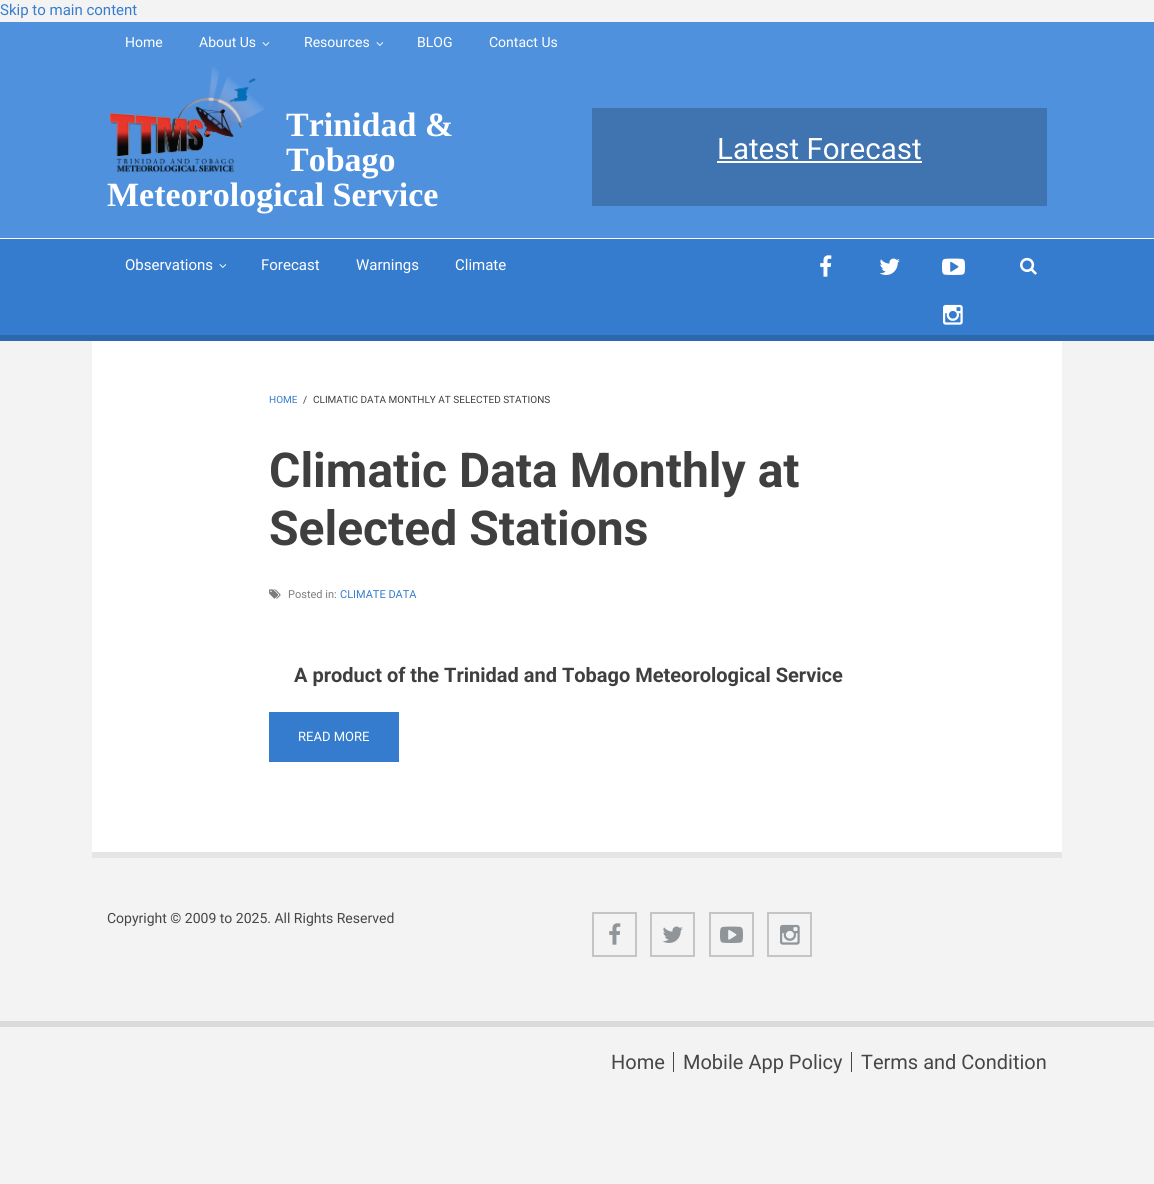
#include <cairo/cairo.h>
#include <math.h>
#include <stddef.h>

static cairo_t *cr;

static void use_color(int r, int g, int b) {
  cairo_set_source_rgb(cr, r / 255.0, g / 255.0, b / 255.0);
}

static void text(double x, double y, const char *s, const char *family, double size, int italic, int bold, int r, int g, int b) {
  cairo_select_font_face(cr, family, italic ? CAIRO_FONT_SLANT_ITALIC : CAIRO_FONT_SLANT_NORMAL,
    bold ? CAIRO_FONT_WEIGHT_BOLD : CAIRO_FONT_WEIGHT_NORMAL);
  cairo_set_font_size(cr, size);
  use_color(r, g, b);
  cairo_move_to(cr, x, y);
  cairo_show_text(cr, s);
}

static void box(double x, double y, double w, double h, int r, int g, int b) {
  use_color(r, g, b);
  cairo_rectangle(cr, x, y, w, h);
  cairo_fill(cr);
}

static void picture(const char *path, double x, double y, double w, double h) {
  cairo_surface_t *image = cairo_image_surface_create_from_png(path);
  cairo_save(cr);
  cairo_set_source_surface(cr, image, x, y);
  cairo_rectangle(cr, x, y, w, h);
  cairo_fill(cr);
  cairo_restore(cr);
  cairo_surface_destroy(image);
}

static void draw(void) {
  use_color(243, 243, 243);
  cairo_paint(cr);
  box(0, 22, 1154, 216, 79, 145, 221);
  picture("img_01.png", 262, 42, 8, 4);
  picture("img_01.png", 376, 42, 8, 4);
  box(0, 238, 1154, 1, 255, 255, 255);
  picture("img_02.png", 109, 66, 155, 107);
  box(592, 108, 455, 98, 63, 116, 177);
  box(717, 161, 205, 2, 255, 255, 255);
  box(0, 239, 1154, 96, 53, 124, 206);
  box(0, 335, 1154, 6, 44, 104, 173);
  picture("img_03.png", 219, 264, 8, 4);
  picture("img_04.png", 820, 255, 12, 22);
  picture("img_05.png", 879, 258, 21, 17);
  picture("img_06.png", 942, 258, 23, 17);
  picture("img_07.png", 943, 304, 20, 21);
  picture("img_08.png", 1020, 257, 17, 18);
  box(92, 341, 970, 511, 255, 255, 255);
  box(92, 852, 970, 6, 229, 229, 229);
  picture("img_09.png", 269, 589, 12, 10);
  box(269, 712, 130, 50, 53, 124, 206);
  box(0, 1021, 1154, 6, 218, 218, 218);
  cairo_rectangle(cr, 593, 913, 43, 43);
  use_color(197, 197, 197);
  cairo_stroke(cr);
  picture("img_10.png", 609, 923, 12, 22);
  cairo_rectangle(cr, 651, 913, 43, 43);
  cairo_stroke(cr);
  picture("img_11.png", 662, 926, 21, 17);
  cairo_rectangle(cr, 710, 913, 43, 43);
  cairo_stroke(cr);
  picture("img_12.png", 720, 926, 23, 17);
  cairo_rectangle(cr, 768, 913, 43, 43);
  cairo_stroke(cr);
  picture("img_13.png", 780, 924, 20, 21);
  box(673, 1052, 1, 20, 70, 70, 70);
  box(851, 1052, 1, 20, 70, 70, 70);
  text(0, 15, "Skip to main content", "Roboto", 15, 0, 0, 53, 124, 206);
  text(125, 47, "Home", "Roboto", 14, 0, 0, 255, 255, 255);
  text(199, 47, "About Us", "Roboto", 14, 0, 0, 255, 255, 255);
  text(304, 47, "Resources", "Roboto", 14, 0, 0, 255, 255, 255);
  text(417, 47, "BLOG", "Roboto", 14, 0, 0, 255, 255, 255);
  text(489, 47, "Contact Us", "Roboto", 14, 0, 0, 255, 255, 255);
  text(286, 136, "Trinidad &", "Liberation Serif", 34, 0, 1, 255, 255, 255);
  text(286, 171, "Tobago", "Liberation Serif", 34, 0, 1, 255, 255, 255);
  text(107, 206, "Meteorological Service", "Liberation Serif", 34, 0, 1, 255, 255, 255);
  text(717, 159, "Latest Forecast", "Roboto", 29.5, 0, 0, 255, 255, 255);
  text(125, 270, "Observations", "Roboto", 15, 0, 0, 255, 255, 255);
  text(261, 270, "Forecast", "Roboto", 15, 0, 0, 255, 255, 255);
  text(356, 270, "Warnings", "Roboto", 15, 0, 0, 255, 255, 255);
  text(455, 270, "Climate", "Roboto", 15, 0, 0, 255, 255, 255);
  text(269, 403, "HOME", "Roboto", 10, 0, 0, 53, 124, 206);
  text(303, 403, "/", "Roboto", 10, 0, 0, 63, 63, 63);
  text(313, 403, "CLIMATIC DATA MONTHLY AT SELECTED STATIONS", "Roboto", 10, 0, 0, 63, 63, 63);
  text(269, 487, "Climatic Data Monthly at", "Roboto", 48, 0, 1, 63, 63, 63);
  text(269, 545, "Selected Stations", "Roboto", 48, 0, 1, 63, 63, 63);
  text(288, 598, "Posted in:", "Roboto", 11, 0, 0, 125, 125, 125);
  text(340, 598, "CLIMATE DATA", "Roboto", 11, 0, 0, 53, 124, 206);
  text(294, 682, "A product of the Trinidad and Tobago Meteorological Service", "Roboto", 20, 0, 1, 63, 63, 63);
  text(298, 741, "READ MORE", "Roboto", 13, 0, 0, 255, 255, 255);
  text(107, 923, "Copyright © 2009 to 2025. All Rights Reserved", "Roboto", 14, 0, 0, 70, 70, 70);
  text(611, 1069, "Home", "Roboto", 20, 0, 0, 70, 70, 70);
  text(683, 1069, "Mobile App Policy", "Roboto", 20, 0, 0, 70, 70, 70);
  text(861, 1069, "Terms and Condition", "Roboto", 20, 0, 0, 70, 70, 70);
}

int main(void) {
  cairo_surface_t *surface = cairo_image_surface_create(CAIRO_FORMAT_RGB24, 1154, 1184);
  cr = cairo_create(surface);
  cairo_font_options_t *options = cairo_font_options_create();
  cairo_font_options_set_hint_metrics(options, CAIRO_HINT_METRICS_OFF);
  cairo_font_options_set_hint_style(options, CAIRO_HINT_STYLE_NONE);
  cairo_set_font_options(cr, options);
  cairo_set_miter_limit(cr, 4);
  draw();
  cairo_surface_write_to_png(surface, "out.png");
  cairo_font_options_destroy(options);
  cairo_destroy(cr);
  cairo_surface_destroy(surface);
  return 0;
}
